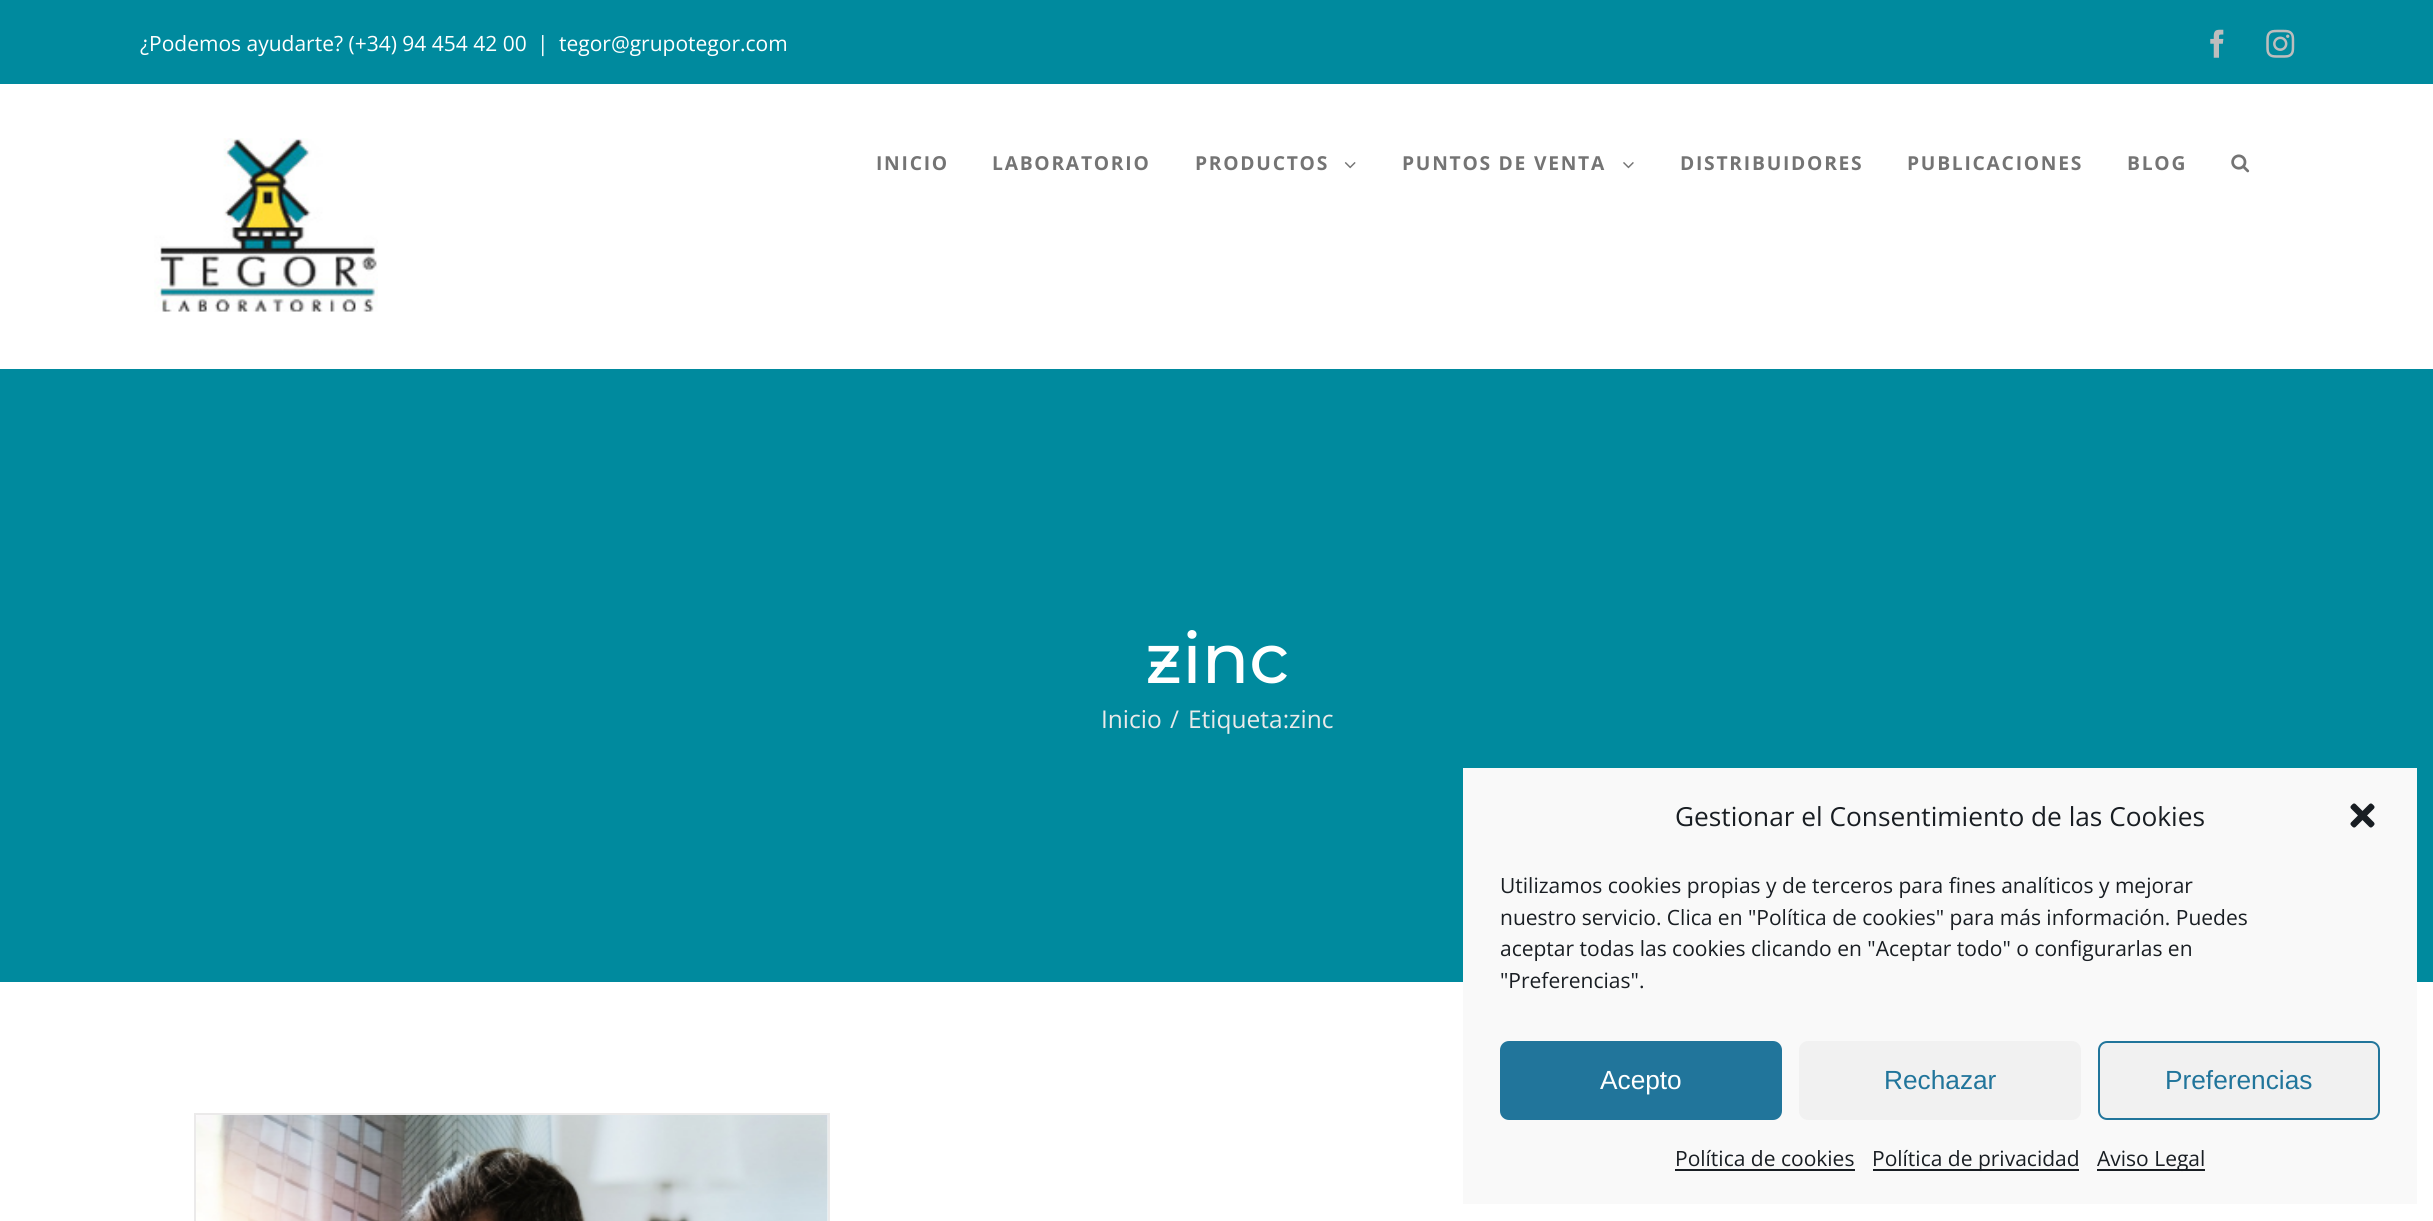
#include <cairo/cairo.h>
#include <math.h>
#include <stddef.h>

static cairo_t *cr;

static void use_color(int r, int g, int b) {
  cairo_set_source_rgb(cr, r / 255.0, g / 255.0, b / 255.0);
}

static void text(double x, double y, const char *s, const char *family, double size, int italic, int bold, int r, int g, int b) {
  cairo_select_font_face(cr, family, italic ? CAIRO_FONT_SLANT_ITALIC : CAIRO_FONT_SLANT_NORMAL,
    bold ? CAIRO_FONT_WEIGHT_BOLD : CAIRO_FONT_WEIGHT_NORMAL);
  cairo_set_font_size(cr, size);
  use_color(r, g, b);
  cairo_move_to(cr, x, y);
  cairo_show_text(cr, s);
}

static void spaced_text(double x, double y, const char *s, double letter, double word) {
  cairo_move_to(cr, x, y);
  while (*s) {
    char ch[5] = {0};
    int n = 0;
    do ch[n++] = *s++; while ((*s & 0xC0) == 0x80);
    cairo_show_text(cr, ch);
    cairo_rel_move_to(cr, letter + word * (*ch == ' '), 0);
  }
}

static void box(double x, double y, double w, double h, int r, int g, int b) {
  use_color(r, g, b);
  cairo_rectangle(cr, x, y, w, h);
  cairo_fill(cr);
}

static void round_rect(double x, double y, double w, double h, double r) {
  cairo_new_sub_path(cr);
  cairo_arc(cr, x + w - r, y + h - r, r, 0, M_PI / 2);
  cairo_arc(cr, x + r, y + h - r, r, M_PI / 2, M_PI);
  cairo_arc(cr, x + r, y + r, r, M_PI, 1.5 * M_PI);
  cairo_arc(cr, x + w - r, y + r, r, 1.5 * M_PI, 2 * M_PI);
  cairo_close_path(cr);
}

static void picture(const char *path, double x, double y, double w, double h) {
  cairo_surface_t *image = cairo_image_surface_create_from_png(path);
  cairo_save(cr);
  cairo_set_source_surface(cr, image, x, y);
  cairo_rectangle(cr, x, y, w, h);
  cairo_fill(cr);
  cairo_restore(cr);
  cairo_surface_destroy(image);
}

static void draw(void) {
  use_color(255, 255, 255);
  cairo_paint(cr);
  box(0, 0, 2433, 84, 0, 138, 158);
  picture("img_01.png", 2210, 29, 14, 29);
  picture("img_02.png", 2266, 29, 29, 29);
  picture("img_03.png", 154, 138, 224, 174);
  picture("img_04.png", 1344, 162, 12, 7);
  picture("img_05.png", 1623, 162, 11, 7);
  picture("img_06.png", 2231, 154, 19, 19);
  box(0, 369, 2433, 613, 0, 138, 158);
  box(194, 1113, 636, 2, 235, 234, 234);
  box(828, 1113, 2, 108, 235, 234, 234);
  box(194, 1113, 2, 108, 235, 234, 234);
  picture("img_07.png", 196, 1115, 632, 106);
  box(1463, 768, 954, 436, 249, 249, 249);
  picture("img_08.png", 2350, 803, 25, 25);
  use_color(33, 117, 155);
  round_rect(1501, 1042, 280, 77, 8);
  cairo_fill_preserve(cr);
  cairo_stroke(cr);
  use_color(241, 241, 241);
  round_rect(1799, 1041, 282, 79, 9);
  cairo_fill(cr);
  round_rect(2099, 1042, 280, 77, 8);
  cairo_fill_preserve(cr);
  use_color(33, 117, 155);
  cairo_stroke(cr);
  box(1675, 1169, 180, 2, 25, 30, 35);
  box(1873, 1169, 206, 2, 25, 30, 35);
  box(2097, 1169, 108, 2, 25, 30, 35);
  text(140, 51, "¿Podemos ayudarte? (+34) 94 454 42 00", "Open Sans", 21, 0, 0, 255, 255, 255);
  text(537, 51, "|", "Open Sans", 21, 0, 0, 255, 255, 255);
  text(559, 51, "tegor@grupotegor.com", "Open Sans", 21, 0, 0, 255, 255, 255);
  cairo_select_font_face(cr, "Open Sans", CAIRO_FONT_SLANT_NORMAL, CAIRO_FONT_WEIGHT_BOLD);
  cairo_set_font_size(cr, 19.25);
  use_color(116, 116, 116);
  spaced_text(876, 170, "INICIO", 1.75, 0);
  spaced_text(992, 170, "LABORATORIO", 1.75, 0);
  spaced_text(1195, 170, "PRODUCTOS", 1.75, 0);
  spaced_text(1402, 170, "PUNTOS DE VENTA", 1.75, 0);
  spaced_text(1680, 170, "DISTRIBUIDORES", 1.75, 0);
  spaced_text(1907, 170, "PUBLICACIONES", 1.75, 0);
  spaced_text(2127, 170, "BLOG", 1.75, 0);
  text(1145, 683, "zinc", "Montserrat Alternates Medium", 70, 0, 0, 255, 255, 255);
  text(1101, 728, "Inicio", "Open Sans", 24.5, 0, 0, 234, 234, 234);
  text(1170, 728, "/", "Open Sans", 24.5, 0, 0, 234, 234, 234);
  text(1188, 728, "Etiqueta:zinc", "Open Sans", 24.5, 0, 0, 234, 234, 234);
  text(1675, 826, "Gestionar el Consentimiento de las Cookies", "Open Sans", 26.25, 0, 0, 25, 30, 35);
  text(1500, 893, "Utilizamos cookies propias y de terceros para fines analíticos y mejorar", "Open Sans", 21, 0, 0, 25, 30, 35);
  text(1500, 925, "nuestro servicio. Clica en \"Política de cookies\" para más información. Puedes", "Open Sans", 21, 0, 0, 25, 30, 35);
  text(1500, 956, "aceptar todas las cookies clicando en \"Aceptar todo\" o configurarlas en", "Open Sans", 21, 0, 0, 25, 30, 35);
  text(1500, 988, "\"Preferencias\".", "Open Sans", 21, 0, 0, 25, 30, 35);
  text(1600, 1089, "Acepto", "Liberation Sans", 26.25, 0, 0, 255, 255, 255);
  text(1884, 1089, "Rechazar", "Liberation Sans", 26.25, 0, 0, 33, 117, 155);
  text(2165, 1089, "Preferencias", "Liberation Sans", 26.25, 0, 0, 33, 117, 155);
  text(1675, 1166, "Política de cookies", "Open Sans", 21, 0, 0, 25, 30, 35);
  text(1872, 1166, "Política de privacidad", "Open Sans", 21, 0, 0, 25, 30, 35);
  text(2097, 1166, "Aviso Legal", "Open Sans", 21, 0, 0, 25, 30, 35);
}

int main(void) {
  cairo_surface_t *surface = cairo_image_surface_create(CAIRO_FORMAT_RGB24, 2433, 1221);
  cr = cairo_create(surface);
  cairo_font_options_t *options = cairo_font_options_create();
  cairo_font_options_set_hint_metrics(options, CAIRO_HINT_METRICS_OFF);
  cairo_font_options_set_hint_style(options, CAIRO_HINT_STYLE_NONE);
  cairo_set_font_options(cr, options);
  cairo_set_miter_limit(cr, 4);
  draw();
  cairo_surface_write_to_png(surface, "out.png");
  cairo_font_options_destroy(options);
  cairo_destroy(cr);
  cairo_surface_destroy(surface);
  return 0;
}
